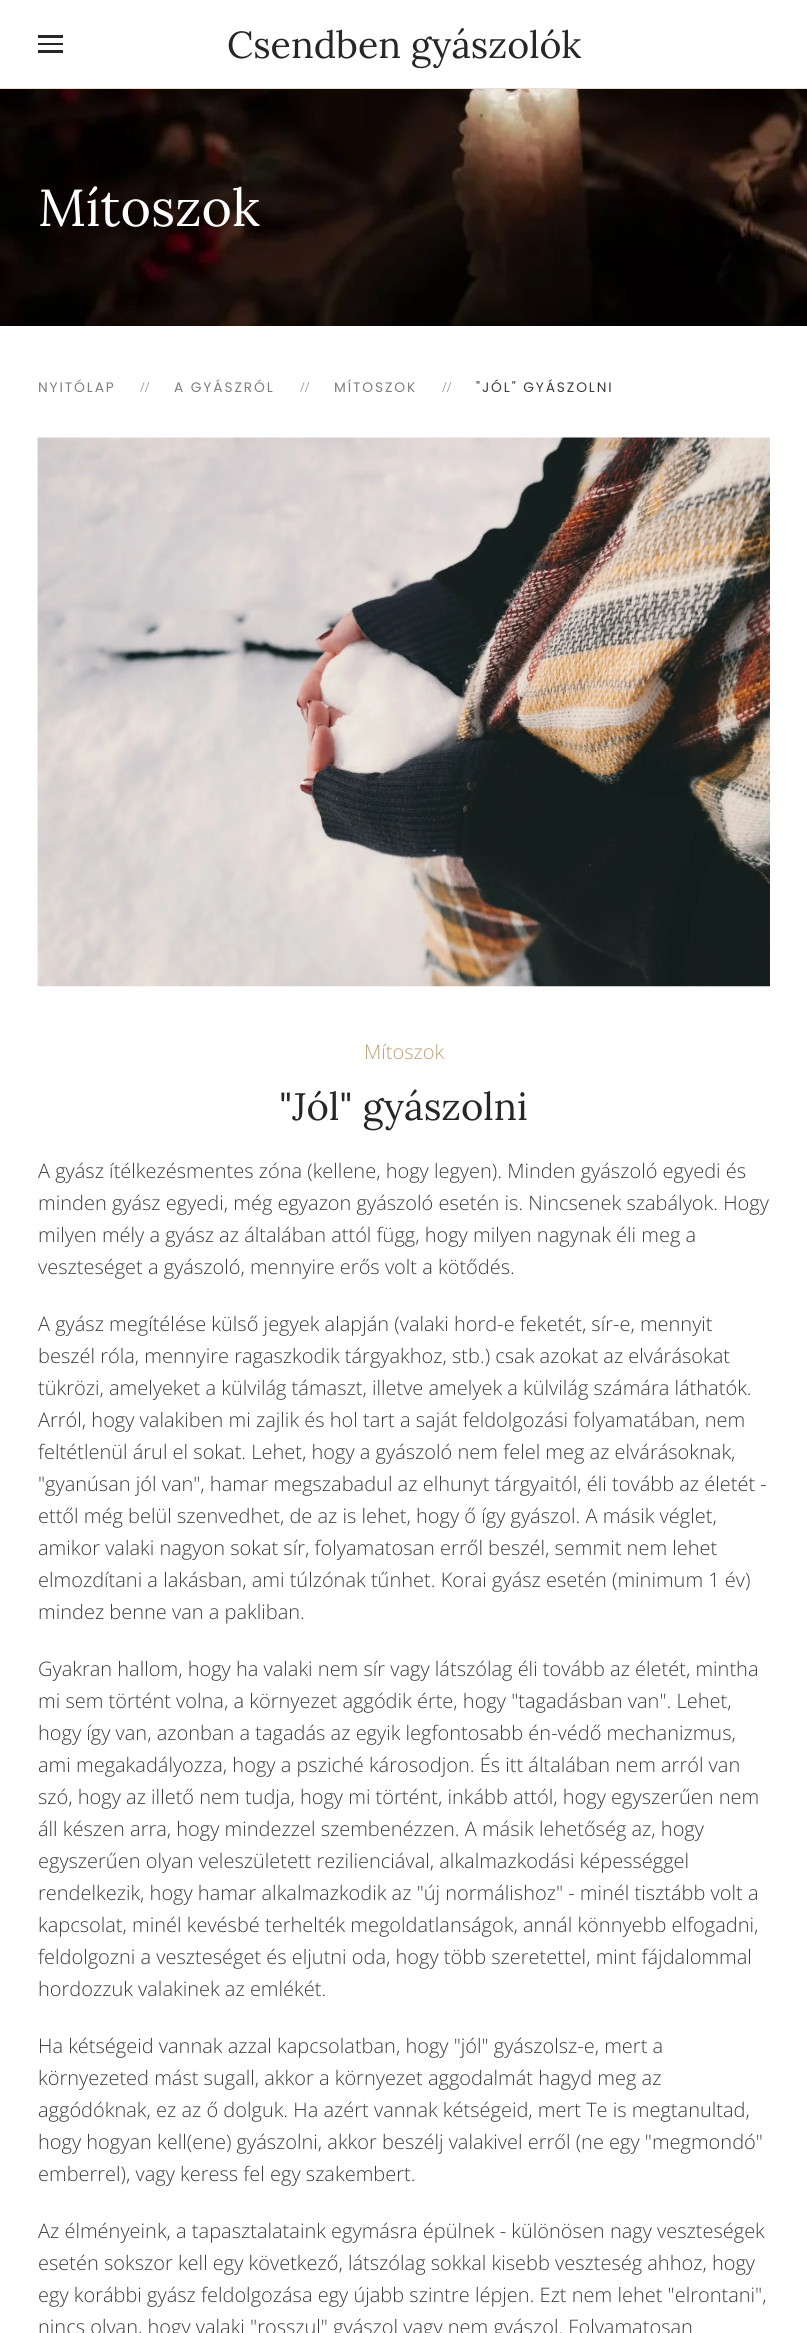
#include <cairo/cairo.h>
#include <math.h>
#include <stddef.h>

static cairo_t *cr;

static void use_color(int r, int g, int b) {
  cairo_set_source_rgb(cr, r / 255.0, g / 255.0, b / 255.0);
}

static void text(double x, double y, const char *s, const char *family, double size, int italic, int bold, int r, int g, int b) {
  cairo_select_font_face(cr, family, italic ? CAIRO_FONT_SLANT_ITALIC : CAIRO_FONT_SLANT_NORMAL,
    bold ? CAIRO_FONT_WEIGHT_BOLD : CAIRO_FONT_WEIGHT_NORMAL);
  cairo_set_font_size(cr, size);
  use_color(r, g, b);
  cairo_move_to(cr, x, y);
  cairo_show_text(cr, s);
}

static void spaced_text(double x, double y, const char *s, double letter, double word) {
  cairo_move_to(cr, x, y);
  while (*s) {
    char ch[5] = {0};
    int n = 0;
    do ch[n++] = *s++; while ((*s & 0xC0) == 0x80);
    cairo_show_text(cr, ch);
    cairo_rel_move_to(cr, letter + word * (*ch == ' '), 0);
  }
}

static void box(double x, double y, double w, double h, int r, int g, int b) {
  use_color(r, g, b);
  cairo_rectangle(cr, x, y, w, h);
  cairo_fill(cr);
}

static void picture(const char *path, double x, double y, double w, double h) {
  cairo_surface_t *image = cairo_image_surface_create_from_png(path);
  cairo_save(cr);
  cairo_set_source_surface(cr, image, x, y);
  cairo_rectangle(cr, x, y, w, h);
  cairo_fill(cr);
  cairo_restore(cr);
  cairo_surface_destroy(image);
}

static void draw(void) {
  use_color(255, 255, 255);
  cairo_paint(cr);
  box(0, 88, 807, 1, 233, 222, 208);
  box(38, 35, 25, 3, 38, 38, 38);
  box(38, 43, 25, 2, 38, 38, 38);
  box(38, 50, 25, 3, 38, 38, 38);
  picture("img_01.png", 0, 89, 807, 237);
  picture("img_02.png", 37, 437, 733, 550);
  text(227, 58, "Csendben gyászolók", "Lora", 37.5, 0, 0, 38, 38, 38);
  text(38, 226, "Mítoszok", "Lora", 52, 0, 0, 255, 255, 255);
  cairo_select_font_face(cr, "Poppins", CAIRO_FONT_SLANT_NORMAL, CAIRO_FONT_WEIGHT_NORMAL);
  cairo_set_font_size(cr, 13.75);
  use_color(126, 126, 126);
  spaced_text(38, 392, "NYITÓLAP", 1.9, 0);
  text(140, 392, "//", "Open Sans Light", 13.75, 0, 0, 126, 126, 126);
  cairo_select_font_face(cr, "Poppins", CAIRO_FONT_SLANT_NORMAL, CAIRO_FONT_WEIGHT_NORMAL);
  spaced_text(174, 392, "A GYÁSZRÓL", 1.9, 0);
  text(300, 392, "//", "Open Sans Light", 13.75, 0, 0, 126, 126, 126);
  cairo_select_font_face(cr, "Poppins", CAIRO_FONT_SLANT_NORMAL, CAIRO_FONT_WEIGHT_NORMAL);
  spaced_text(334, 392, "MÍTOSZOK", 1.9, 0);
  text(442, 392, "//", "Open Sans Light", 13.75, 0, 0, 126, 126, 126);
  cairo_select_font_face(cr, "Poppins", CAIRO_FONT_SLANT_NORMAL, CAIRO_FONT_WEIGHT_NORMAL);
  use_color(60, 60, 60);
  spaced_text(476, 392, "\"JÓL\" GYÁSZOLNI", 1.9, 0);
  text(364, 1059, "Mítoszok", "Open Sans Light", 20, 0, 0, 191, 162, 121);
  text(279, 1120, "\"Jól\" gyászolni", "Lora", 38.25, 0, 0, 38, 38, 38);
  text(38, 1178, "A gyász ítélkezésmentes zóna (kellene, hogy legyen). Minden gyászoló egyedi és", "Open Sans Light", 20, 0, 0, 60, 60, 60);
  text(38, 1210, "minden gyász egyedi, még egyazon gyászoló esetén is. Nincsenek szabályok. Hogy", "Open Sans Light", 20, 0, 0, 60, 60, 60);
  text(38, 1242, "milyen mély a gyász az általában attól függ, hogy milyen nagynak éli meg a", "Open Sans Light", 20, 0, 0, 60, 60, 60);
  text(38, 1274, "veszteséget a gyászoló, mennyire erős volt a kötődés.", "Open Sans Light", 20, 0, 0, 60, 60, 60);
  text(38, 1331, "A gyász megítélése külső jegyek alapján (valaki hord-e feketét, sír-e, mennyit", "Open Sans Light", 20, 0, 0, 60, 60, 60);
  text(38, 1363, "beszél róla, mennyire ragaszkodik tárgyakhoz, stb.) csak azokat az elvárásokat", "Open Sans Light", 20, 0, 0, 60, 60, 60);
  text(38, 1395, "tükrözi, amelyeket a külvilág támaszt, illetve amelyek a külvilág számára láthatók.", "Open Sans Light", 20, 0, 0, 60, 60, 60);
  text(38, 1427, "Arról, hogy valakiben mi zajlik és hol tart a saját feldolgozási folyamatában, nem", "Open Sans Light", 20, 0, 0, 60, 60, 60);
  text(38, 1459, "feltétlenül árul el sokat. Lehet, hogy a gyászoló nem felel meg az elvárásoknak,", "Open Sans Light", 20, 0, 0, 60, 60, 60);
  text(38, 1491, "\"gyanúsan jól van\", hamar megszabadul az elhunyt tárgyaitól, éli tovább az életét -", "Open Sans Light", 20, 0, 0, 60, 60, 60);
  text(38, 1523, "ettől még belül szenvedhet, de az is lehet, hogy ő így gyászol. A másik véglet,", "Open Sans Light", 20, 0, 0, 60, 60, 60);
  text(38, 1555, "amikor valaki nagyon sokat sír, folyamatosan erről beszél, semmit nem lehet", "Open Sans Light", 20, 0, 0, 60, 60, 60);
  text(38, 1587, "elmozdítani a lakásban, ami túlzónak tűnhet. Korai gyász esetén (minimum 1 év)", "Open Sans Light", 20, 0, 0, 60, 60, 60);
  text(38, 1619, "mindez benne van a pakliban.", "Open Sans Light", 20, 0, 0, 60, 60, 60);
  text(38, 1676, "Gyakran hallom, hogy ha valaki nem sír vagy látszólag éli tovább az életét, mintha", "Open Sans Light", 20, 0, 0, 60, 60, 60);
  text(38, 1708, "mi sem történt volna, a környezet aggódik érte, hogy \"tagadásban van\". Lehet,", "Open Sans Light", 20, 0, 0, 60, 60, 60);
  text(38, 1740, "hogy így van, azonban a tagadás az egyik legfontosabb én-védő mechanizmus,", "Open Sans Light", 20, 0, 0, 60, 60, 60);
  text(38, 1772, "ami megakadályozza, hogy a psziché károsodjon. És itt általában nem arról van", "Open Sans Light", 20, 0, 0, 60, 60, 60);
  text(38, 1804, "szó, hogy az illető nem tudja, hogy mi történt, inkább attól, hogy egyszerűen nem", "Open Sans Light", 20, 0, 0, 60, 60, 60);
  text(38, 1836, "áll készen arra, hogy mindezzel szembenézzen. A másik lehetőség az, hogy", "Open Sans Light", 20, 0, 0, 60, 60, 60);
  text(38, 1868, "egyszerűen olyan veleszületett rezilienciával, alkalmazkodási képességgel", "Open Sans Light", 20, 0, 0, 60, 60, 60);
  text(38, 1900, "rendelkezik, hogy hamar alkalmazkodik az \"új normálishoz\" - minél tisztább volt a", "Open Sans Light", 20, 0, 0, 60, 60, 60);
  text(38, 1932, "kapcsolat, minél kevésbé terhelték megoldatlanságok, annál könnyebb elfogadni,", "Open Sans Light", 20, 0, 0, 60, 60, 60);
  text(38, 1964, "feldolgozni a veszteséget és eljutni oda, hogy több szeretettel, mint fájdalommal", "Open Sans Light", 20, 0, 0, 60, 60, 60);
  text(38, 1996, "hordozzuk valakinek az emlékét.", "Open Sans Light", 20, 0, 0, 60, 60, 60);
  text(38, 2053, "Ha kétségeid vannak azzal kapcsolatban, hogy \"jól\" gyászolsz-e, mert a", "Open Sans Light", 20, 0, 0, 60, 60, 60);
  text(38, 2085, "környezeted mást sugall, akkor a környezet aggodalmát hagyd meg az", "Open Sans Light", 20, 0, 0, 60, 60, 60);
  text(38, 2117, "aggódóknak, ez az ő dolguk. Ha azért vannak kétségeid, mert Te is megtanultad,", "Open Sans Light", 20, 0, 0, 60, 60, 60);
  text(38, 2149, "hogy hogyan kell(ene) gyászolni, akkor beszélj valakivel erről (ne egy \"megmondó\"", "Open Sans Light", 20, 0, 0, 60, 60, 60);
  text(38, 2181, "emberrel), vagy keress fel egy szakembert.", "Open Sans Light", 20, 0, 0, 60, 60, 60);
  text(38, 2238, "Az élményeink, a tapasztalataink egymásra épülnek - különösen nagy veszteségek", "Open Sans Light", 20, 0, 0, 60, 60, 60);
  text(38, 2270, "esetén sokszor kell egy következő, látszólag sokkal kisebb veszteség ahhoz, hogy", "Open Sans Light", 20, 0, 0, 60, 60, 60);
  text(38, 2302, "egy korábbi gyász feldolgozása egy újabb szintre lépjen. Ezt nem lehet \"elrontani\",", "Open Sans Light", 20, 0, 0, 60, 60, 60);
  text(38, 2334, "nincs olyan, hogy valaki \"rosszul\" gyászol vagy nem gyászol. Folyamatosan", "Open Sans Light", 20, 0, 0, 60, 60, 60);
}

int main(void) {
  cairo_surface_t *surface = cairo_image_surface_create(CAIRO_FORMAT_RGB24, 807, 2333);
  cr = cairo_create(surface);
  cairo_font_options_t *options = cairo_font_options_create();
  cairo_font_options_set_hint_metrics(options, CAIRO_HINT_METRICS_OFF);
  cairo_font_options_set_hint_style(options, CAIRO_HINT_STYLE_NONE);
  cairo_set_font_options(cr, options);
  cairo_set_miter_limit(cr, 4);
  draw();
  cairo_surface_write_to_png(surface, "out.png");
  cairo_font_options_destroy(options);
  cairo_destroy(cr);
  cairo_surface_destroy(surface);
  return 0;
}
